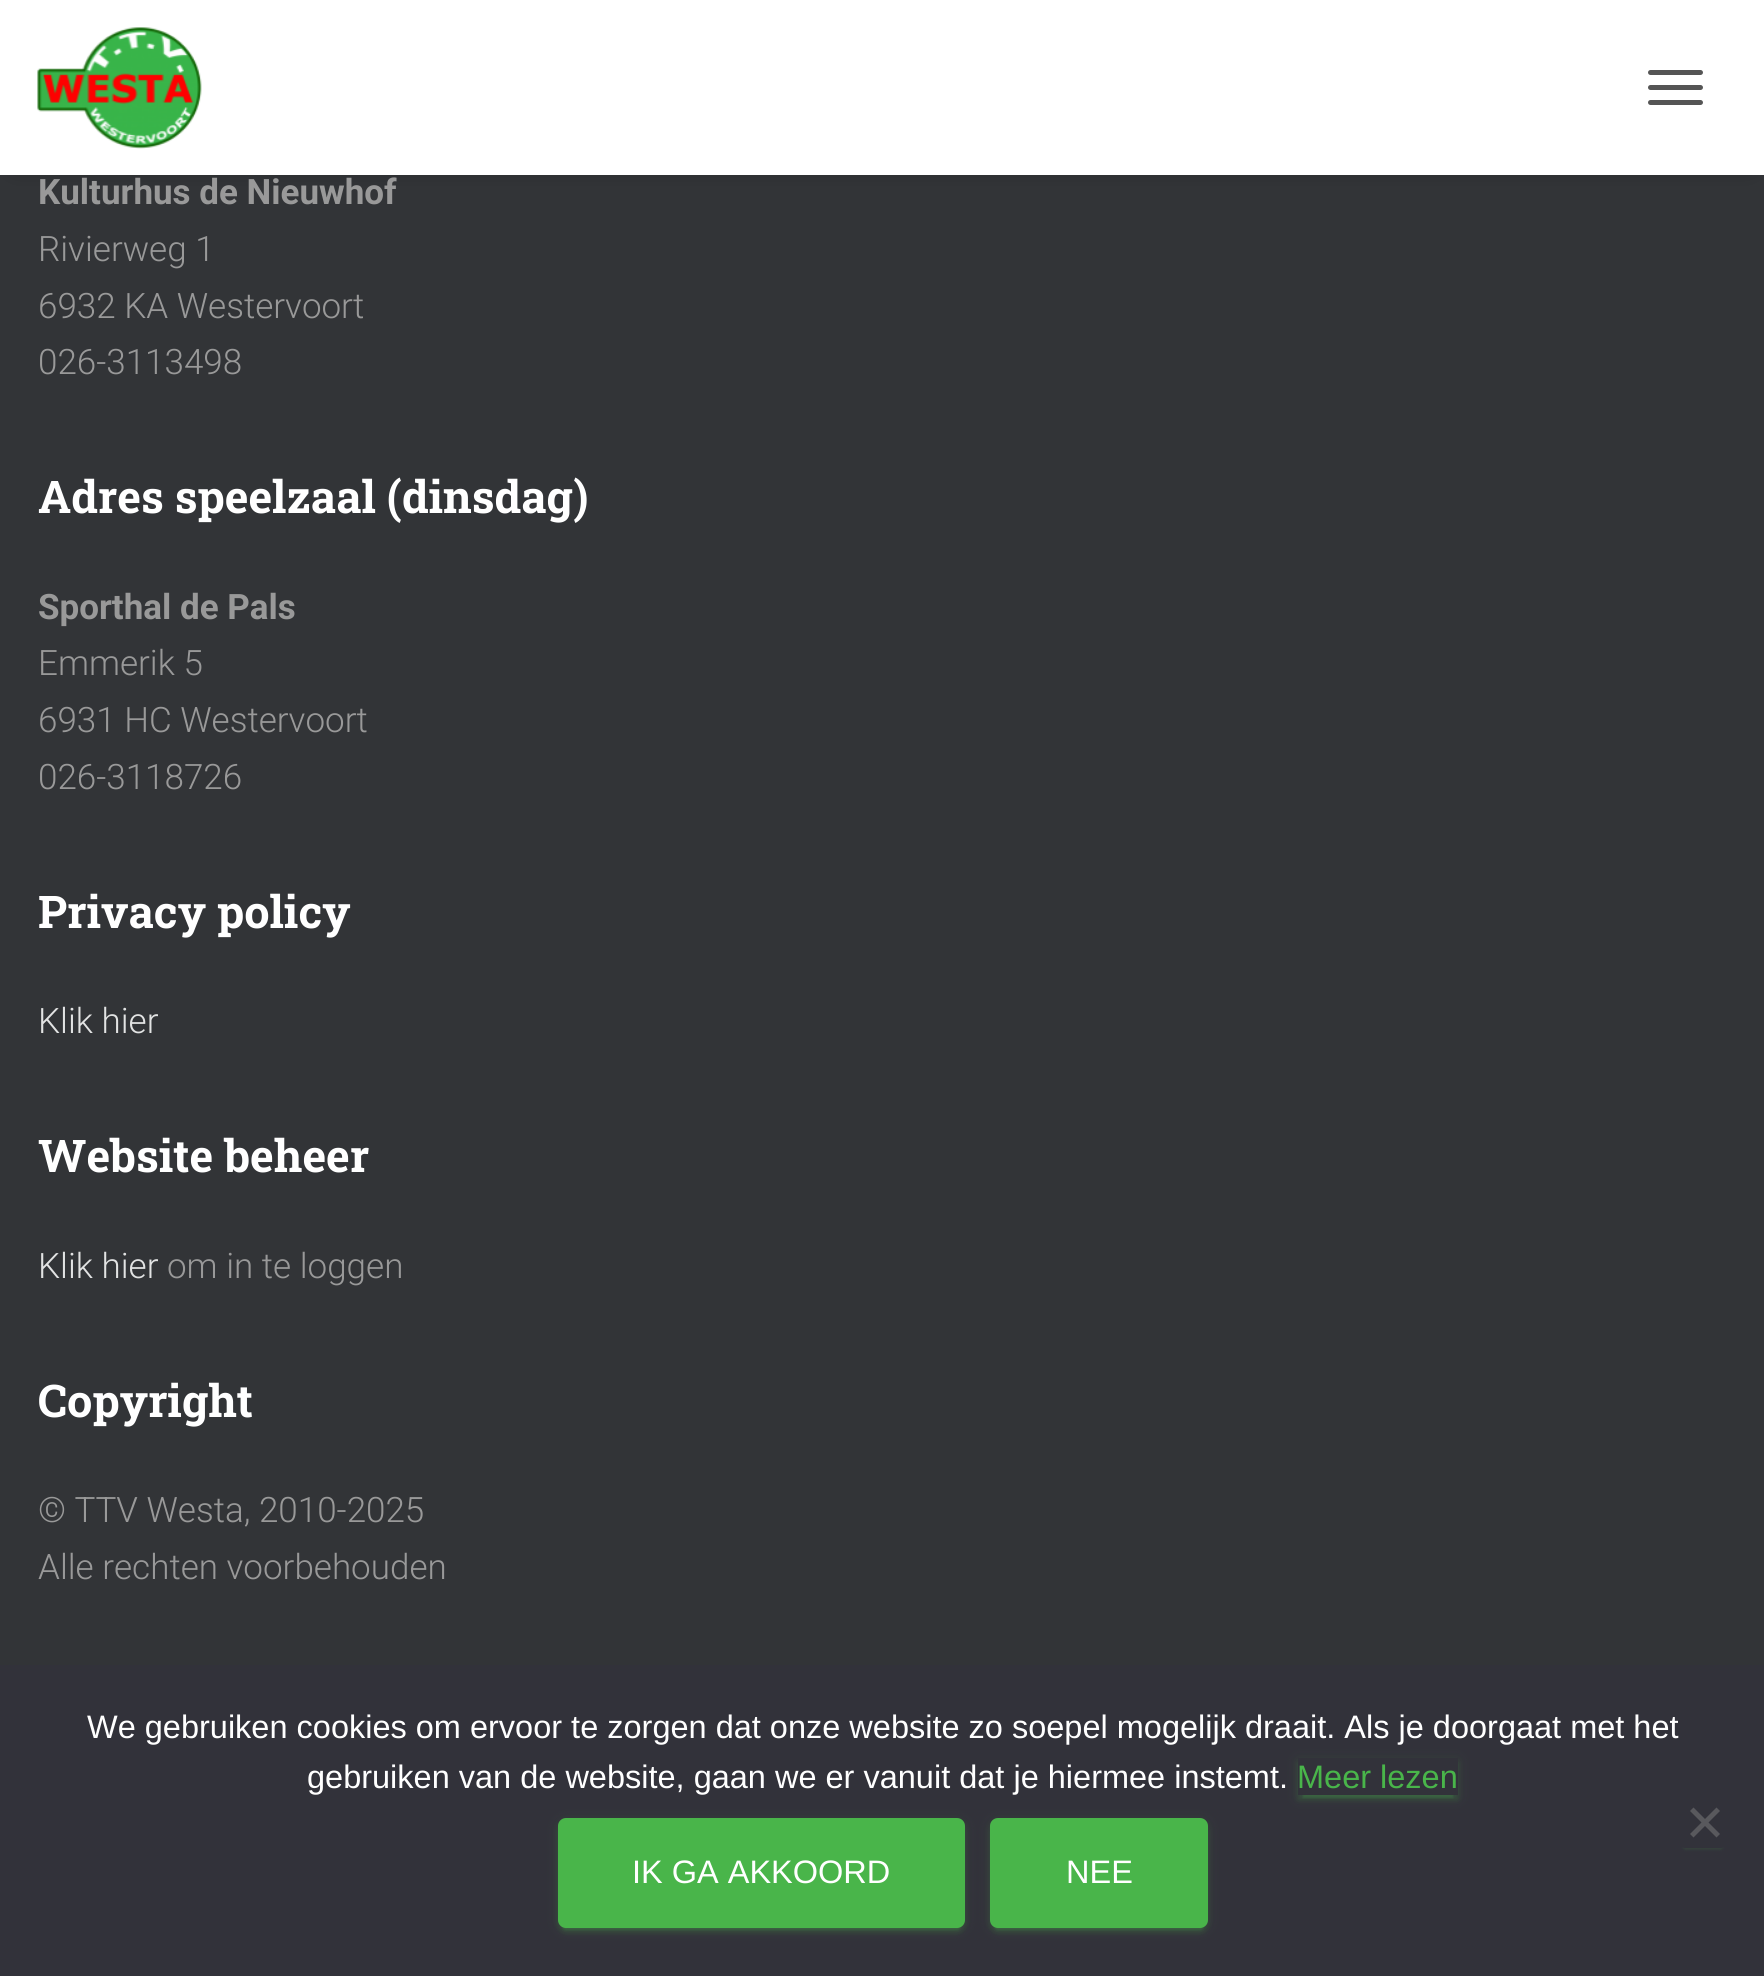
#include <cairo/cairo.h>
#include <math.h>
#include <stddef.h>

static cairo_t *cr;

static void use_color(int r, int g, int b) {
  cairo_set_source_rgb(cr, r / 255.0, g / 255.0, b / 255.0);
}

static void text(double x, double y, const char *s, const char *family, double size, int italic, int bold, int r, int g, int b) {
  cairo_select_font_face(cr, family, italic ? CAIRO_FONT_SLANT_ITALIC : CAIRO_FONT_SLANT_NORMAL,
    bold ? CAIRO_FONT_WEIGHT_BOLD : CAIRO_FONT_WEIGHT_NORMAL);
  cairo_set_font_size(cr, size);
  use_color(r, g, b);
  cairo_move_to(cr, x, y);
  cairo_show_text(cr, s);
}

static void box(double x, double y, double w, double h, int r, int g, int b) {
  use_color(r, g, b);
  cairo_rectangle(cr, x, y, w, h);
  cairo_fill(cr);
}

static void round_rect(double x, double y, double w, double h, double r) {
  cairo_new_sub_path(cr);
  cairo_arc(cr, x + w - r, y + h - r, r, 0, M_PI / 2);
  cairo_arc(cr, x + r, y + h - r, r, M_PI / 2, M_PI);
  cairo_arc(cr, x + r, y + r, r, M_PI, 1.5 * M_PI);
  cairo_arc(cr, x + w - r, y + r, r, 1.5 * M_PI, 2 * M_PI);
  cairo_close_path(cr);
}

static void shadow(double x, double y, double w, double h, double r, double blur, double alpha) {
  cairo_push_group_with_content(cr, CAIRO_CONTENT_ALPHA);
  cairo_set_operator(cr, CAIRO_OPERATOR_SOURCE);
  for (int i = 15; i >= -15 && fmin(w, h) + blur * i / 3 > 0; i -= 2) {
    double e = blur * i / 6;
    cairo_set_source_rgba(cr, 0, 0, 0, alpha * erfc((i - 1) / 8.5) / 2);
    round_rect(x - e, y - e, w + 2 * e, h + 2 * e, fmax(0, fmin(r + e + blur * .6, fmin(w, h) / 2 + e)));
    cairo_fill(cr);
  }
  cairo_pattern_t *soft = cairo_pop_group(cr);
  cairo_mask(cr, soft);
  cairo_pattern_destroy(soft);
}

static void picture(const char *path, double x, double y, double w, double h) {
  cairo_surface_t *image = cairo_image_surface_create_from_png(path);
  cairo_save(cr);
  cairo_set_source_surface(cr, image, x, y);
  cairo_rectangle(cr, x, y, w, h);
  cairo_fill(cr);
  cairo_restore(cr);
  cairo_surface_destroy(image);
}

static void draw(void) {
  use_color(50, 52, 55);
  cairo_paint(cr);
  use_color(0, 0, 0);
  shadow(15, 18, 1735, 145, 0, 12.5, 0.42);
  box(0, 0, 1764, 175, 255, 255, 255);
  picture("img_01.png", 37, 27, 165, 122);
  use_color(85, 85, 85);
  round_rect(1648, 70, 55, 5, 2.5);
  cairo_fill(cr);
  round_rect(1648, 85, 55, 5, 2.5);
  cairo_fill(cr);
  round_rect(1648, 100, 55, 5, 2.5);
  cairo_fill(cr);
  box(0, 1665, 1764, 311, 50, 50, 58);
  cairo_save(cr);
  cairo_set_fill_rule(cr, CAIRO_FILL_RULE_EVEN_ODD);
  cairo_new_path(cr);
  cairo_move_to(cr, 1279, 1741);
  cairo_line_to(cr, 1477, 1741);
  cairo_line_to(cr, 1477, 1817);
  cairo_line_to(cr, 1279, 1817);
  cairo_close_path(cr);
  cairo_move_to(cr, 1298, 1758);
  cairo_line_to(cr, 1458, 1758);
  cairo_line_to(cr, 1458, 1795);
  cairo_line_to(cr, 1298, 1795);
  cairo_close_path(cr);
  cairo_clip(cr);
  use_color(73, 181, 74);
  shadow(1298, 1760, 160, 38, 0, 6, 0.12);
  cairo_restore(cr);
  cairo_save(cr);
  cairo_rectangle(cr, 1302, 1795, 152, 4);
  cairo_clip(cr);
  use_color(73, 181, 74);
  shadow(1303, 1770, 150, 28, 0, 1, 0.2);
  cairo_restore(cr);
  cairo_save(cr);
  cairo_set_fill_rule(cr, CAIRO_FILL_RULE_EVEN_ODD);
  cairo_new_path(cr);
  cairo_move_to(cr, 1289, 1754);
  cairo_line_to(cr, 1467, 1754);
  cairo_line_to(cr, 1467, 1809);
  cairo_line_to(cr, 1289, 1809);
  cairo_close_path(cr);
  cairo_move_to(cr, 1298, 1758);
  cairo_line_to(cr, 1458, 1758);
  cairo_line_to(cr, 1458, 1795);
  cairo_line_to(cr, 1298, 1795);
  cairo_close_path(cr);
  cairo_clip(cr);
  use_color(73, 181, 74);
  shadow(1298, 1763, 160, 37, 0, 2.5, 0.14);
  cairo_restore(cr);
  cairo_save(cr);
  cairo_set_fill_rule(cr, CAIRO_FILL_RULE_EVEN_ODD);
  cairo_new_path(cr);
  cairo_move_to(cr, 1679, 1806);
  cairo_line_to(cr, 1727, 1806);
  cairo_line_to(cr, 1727, 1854);
  cairo_line_to(cr, 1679, 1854);
  cairo_close_path(cr);
  cairo_move_to(cr, 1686, 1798);
  cairo_line_to(cr, 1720, 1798);
  cairo_curve_to(cr, 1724.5, 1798, 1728, 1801.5, 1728, 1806);
  cairo_line_to(cr, 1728, 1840);
  cairo_curve_to(cr, 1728, 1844.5, 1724.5, 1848, 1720, 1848);
  cairo_line_to(cr, 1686, 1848);
  cairo_curve_to(cr, 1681.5, 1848, 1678, 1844.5, 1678, 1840);
  cairo_line_to(cr, 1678, 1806);
  cairo_curve_to(cr, 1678, 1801.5, 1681.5, 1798, 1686, 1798);
  cairo_close_path(cr);
  cairo_clip(cr);
  use_color(62, 116, 66);
  shadow(1683, 1810, 40, 40, 2.5, 1, 0.2);
  cairo_restore(cr);
  use_color(89, 89, 93);
  cairo_new_path(cr);
  cairo_move_to(cr, 1716.5, 1807.5);
  cairo_line_to(cr, 1720, 1811);
  cairo_line_to(cr, 1693.5, 1837.5);
  cairo_line_to(cr, 1690, 1834);
  cairo_close_path(cr);
  cairo_fill(cr);
  cairo_new_path(cr);
  cairo_move_to(cr, 1690, 1811);
  cairo_line_to(cr, 1693.5, 1807.5);
  cairo_line_to(cr, 1720, 1834);
  cairo_line_to(cr, 1716.5, 1837.5);
  cairo_close_path(cr);
  cairo_fill(cr);
  use_color(73, 181, 74);
  shadow(558, 1820, 407, 110, 8, 6, 0.12);
  shadow(563, 1830, 397, 100, 2.5, 1, 0.2);
  shadow(558, 1823, 407, 110, 8, 2.5, 0.14);
  use_color(73, 181, 74);
  round_rect(558, 1818, 407, 110, 8);
  cairo_fill(cr);
  use_color(73, 181, 74);
  shadow(990, 1820, 218, 110, 8, 6, 0.12);
  shadow(995, 1830, 208, 100, 2.5, 1, 0.2);
  shadow(990, 1823, 218, 110, 8, 2.5, 0.14);
  use_color(73, 181, 74);
  round_rect(990, 1818, 218, 110, 8);
  cairo_fill(cr);
  text(38, 204, "Kulturhus de Nieuwhof", "Roboto", 35, 0, 1, 153, 153, 153);
  text(38, 261, "Rivierweg 1", "Roboto Light", 35, 0, 0, 153, 153, 153);
  text(38, 318, "6932 KA Westervoort", "Roboto Light", 35, 0, 0, 153, 153, 153);
  text(38, 374, "026-3113498", "Roboto Light", 35, 0, 0, 153, 153, 153);
  text(38, 513, "Adres speelzaal (dinsdag)", "Roboto Slab", 45, 0, 1, 255, 255, 255);
  text(38, 619, "Sporthal de Pals", "Roboto", 35, 0, 1, 153, 153, 153);
  text(38, 675, "Emmerik 5", "Roboto Light", 35, 0, 0, 153, 153, 153);
  text(38, 732, "6931 HC Westervoort", "Roboto Light", 35, 0, 0, 153, 153, 153);
  text(38, 789, "026-3118726", "Roboto Light", 35, 0, 0, 153, 153, 153);
  text(38, 928, "Privacy policy", "Roboto Slab", 45, 0, 1, 255, 255, 255);
  text(38, 1033, "Klik hier", "Roboto Light", 35, 0, 0, 226, 227, 227);
  text(38, 1172, "Website beheer", "Roboto Slab", 45, 0, 1, 255, 255, 255);
  text(38, 1278, "Klik hier", "Roboto Light", 35, 0, 0, 226, 227, 227);
  text(167, 1278, "om in te loggen", "Roboto Light", 35, 0, 0, 153, 153, 153);
  text(38, 1417, "Copyright", "Roboto Slab", 45, 0, 1, 255, 255, 255);
  text(38, 1522, "© TTV Westa, 2010-2025", "Roboto Light", 35, 0, 0, 153, 153, 153);
  text(38, 1579, "Alle rechten voorbehouden", "Roboto Light", 35, 0, 0, 153, 153, 153);
  text(87, 1738, "We gebruiken cookies om ervoor te zorgen dat onze website zo soepel mogelijk draait. Als je doorgaat met het", "Liberation Sans", 32.5, 0, 0, 255, 255, 255);
  text(307, 1788, "gebruiken van de website, gaan we er vanuit dat je hiermee instemt.", "Liberation Sans", 32.5, 0, 0, 255, 255, 255);
  text(1297, 1788, "Meer lezen", "Liberation Sans", 32.5, 0, 0, 73, 181, 74);
  text(632, 1883, "IK GA AKKOORD", "Liberation Sans", 32.5, 0, 0, 255, 255, 255);
  text(1066, 1883, "NEE", "Liberation Sans", 32.5, 0, 0, 255, 255, 255);
}

int main(void) {
  cairo_surface_t *surface = cairo_image_surface_create(CAIRO_FORMAT_RGB24, 1764, 1976);
  cr = cairo_create(surface);
  cairo_font_options_t *options = cairo_font_options_create();
  cairo_font_options_set_hint_metrics(options, CAIRO_HINT_METRICS_OFF);
  cairo_font_options_set_hint_style(options, CAIRO_HINT_STYLE_NONE);
  cairo_set_font_options(cr, options);
  cairo_set_miter_limit(cr, 4);
  draw();
  cairo_surface_write_to_png(surface, "out.png");
  cairo_font_options_destroy(options);
  cairo_destroy(cr);
  cairo_surface_destroy(surface);
  return 0;
}
